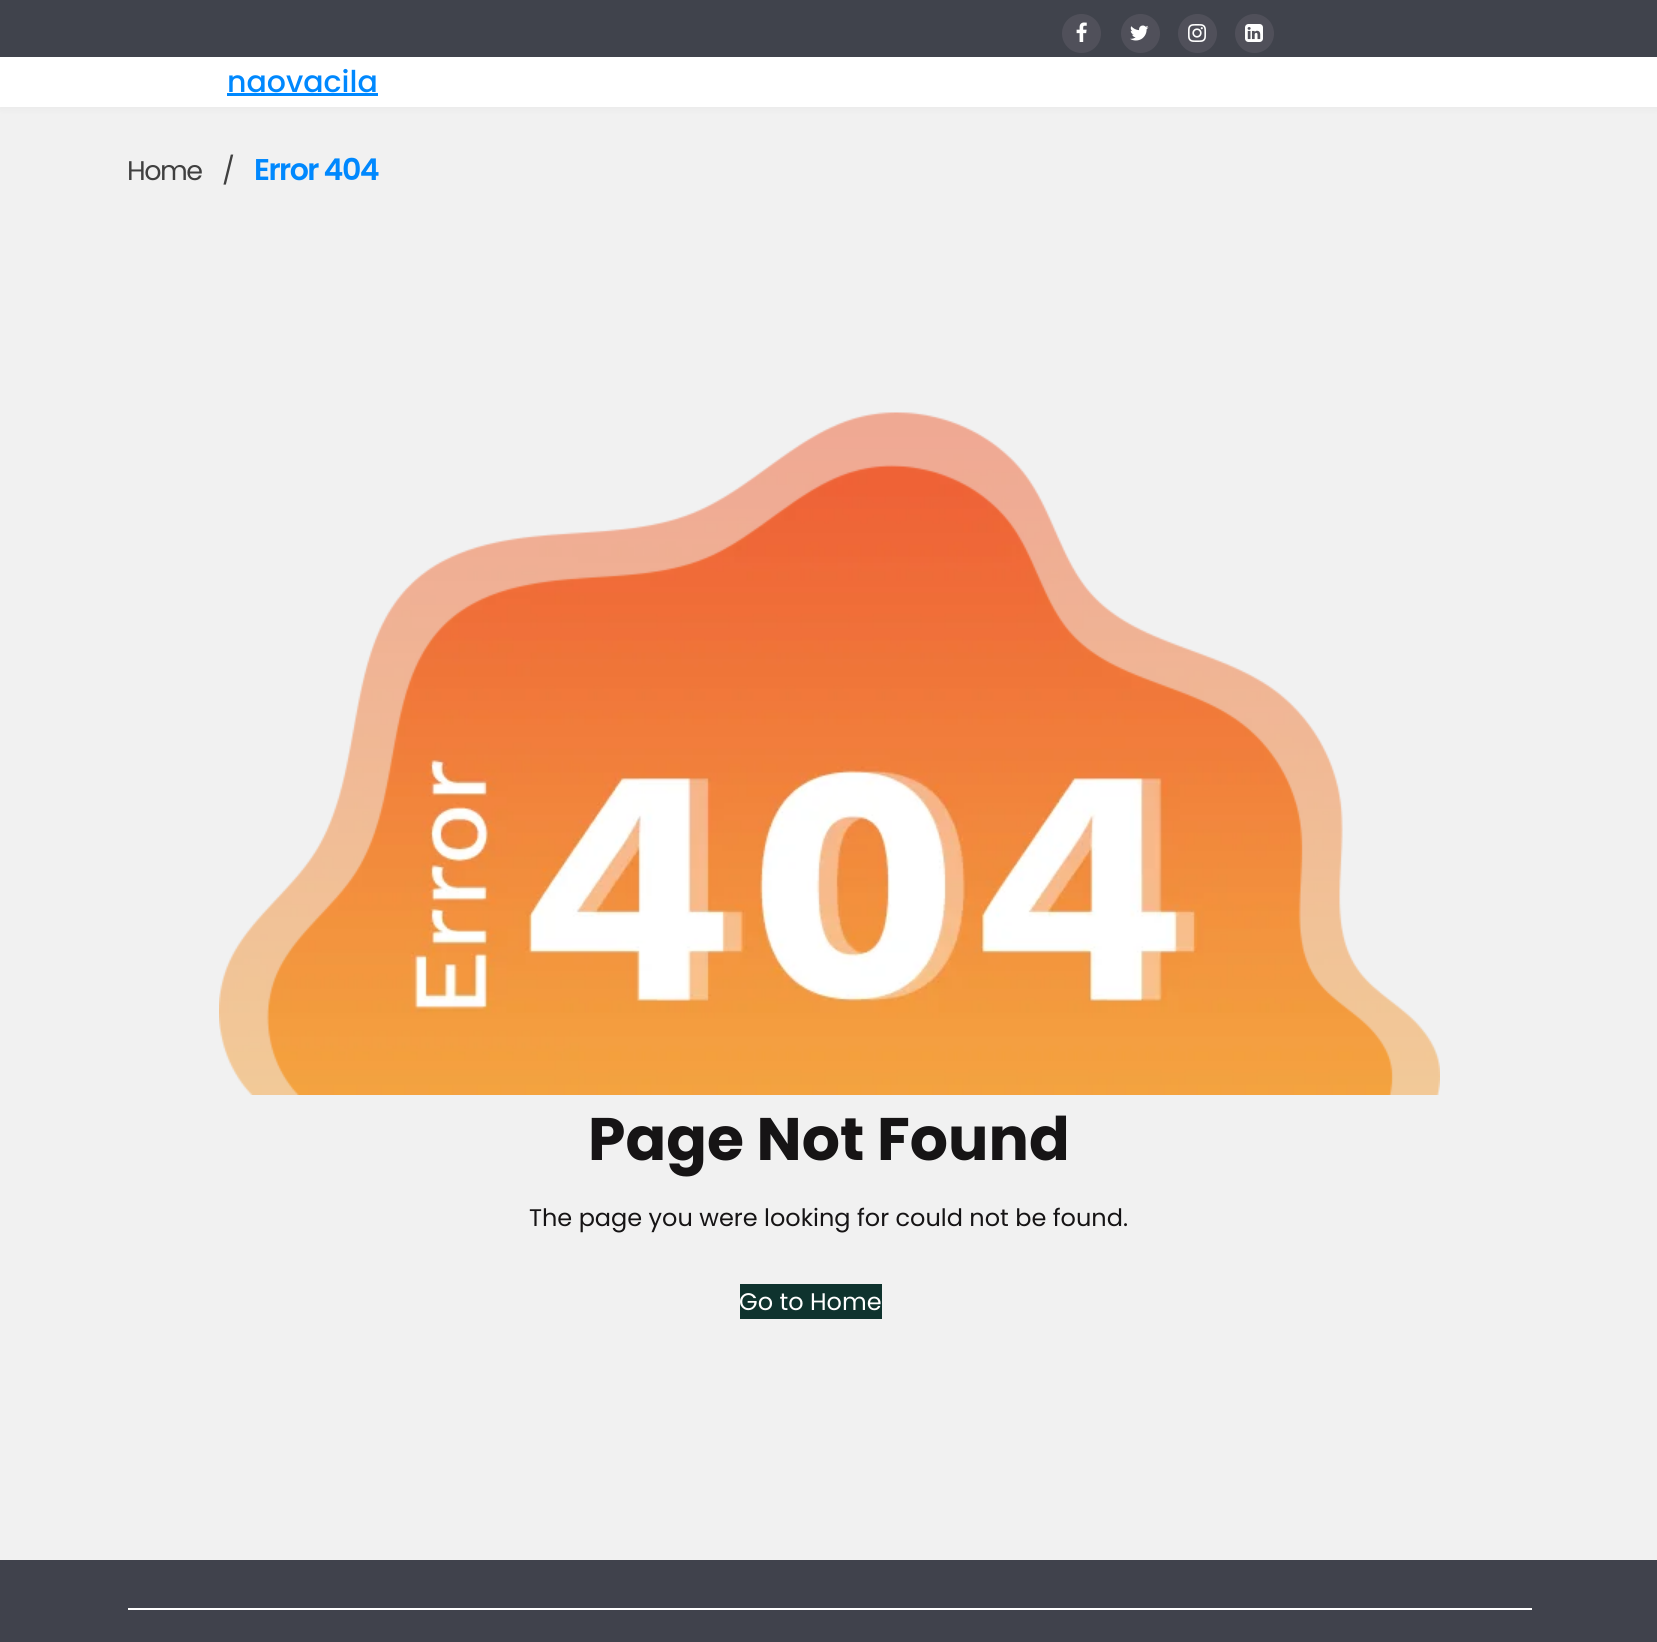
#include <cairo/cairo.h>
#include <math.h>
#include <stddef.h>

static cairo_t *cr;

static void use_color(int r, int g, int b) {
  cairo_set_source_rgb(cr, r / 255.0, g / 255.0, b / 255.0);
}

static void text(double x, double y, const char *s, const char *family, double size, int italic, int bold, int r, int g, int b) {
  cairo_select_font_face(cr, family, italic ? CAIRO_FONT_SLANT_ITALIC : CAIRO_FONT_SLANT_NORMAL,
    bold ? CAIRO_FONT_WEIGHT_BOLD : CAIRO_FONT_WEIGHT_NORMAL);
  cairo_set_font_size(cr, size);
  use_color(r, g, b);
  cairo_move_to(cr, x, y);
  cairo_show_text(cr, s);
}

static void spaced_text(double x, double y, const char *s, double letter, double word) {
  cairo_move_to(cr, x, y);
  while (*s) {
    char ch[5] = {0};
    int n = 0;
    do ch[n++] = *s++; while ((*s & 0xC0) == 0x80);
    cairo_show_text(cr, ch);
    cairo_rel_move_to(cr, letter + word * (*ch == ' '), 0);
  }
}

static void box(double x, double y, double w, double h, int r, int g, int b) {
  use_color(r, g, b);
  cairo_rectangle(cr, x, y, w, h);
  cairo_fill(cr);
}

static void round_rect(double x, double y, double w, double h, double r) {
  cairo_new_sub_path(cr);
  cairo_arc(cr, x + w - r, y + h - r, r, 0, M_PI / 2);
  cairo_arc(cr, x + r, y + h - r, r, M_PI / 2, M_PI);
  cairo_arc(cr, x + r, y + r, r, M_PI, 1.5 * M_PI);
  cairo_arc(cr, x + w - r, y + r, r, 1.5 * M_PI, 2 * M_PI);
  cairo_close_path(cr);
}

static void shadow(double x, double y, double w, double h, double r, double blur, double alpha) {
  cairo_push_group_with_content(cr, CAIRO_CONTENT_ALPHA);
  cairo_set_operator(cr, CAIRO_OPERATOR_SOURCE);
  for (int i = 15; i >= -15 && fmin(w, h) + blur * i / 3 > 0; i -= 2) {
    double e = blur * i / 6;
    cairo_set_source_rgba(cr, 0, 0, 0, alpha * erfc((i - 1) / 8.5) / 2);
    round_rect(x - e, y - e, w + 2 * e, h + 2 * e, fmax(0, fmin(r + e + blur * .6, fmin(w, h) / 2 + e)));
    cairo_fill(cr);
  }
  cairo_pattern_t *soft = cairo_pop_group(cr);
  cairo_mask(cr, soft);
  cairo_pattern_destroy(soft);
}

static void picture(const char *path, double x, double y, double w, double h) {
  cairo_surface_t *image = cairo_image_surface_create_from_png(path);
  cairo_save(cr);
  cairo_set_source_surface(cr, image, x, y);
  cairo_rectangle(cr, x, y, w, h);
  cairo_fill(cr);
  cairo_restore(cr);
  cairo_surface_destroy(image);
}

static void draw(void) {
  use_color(241, 241, 241);
  cairo_paint(cr);
  use_color(0, 0, 0);
  shadow(0, 0, 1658, 107, 0, 4.5, 0.05);
  box(0, 57, 1657, 50, 255, 255, 255);
  box(0, 0, 1657, 57, 64, 67, 76);
  use_color(80, 80, 90);
  cairo_arc(cr, 1081.5, 33.5, 19.5, 0, 2 * M_PI);
  cairo_fill(cr);
  picture("img_01.png", 1076, 22, 11, 20);
  cairo_arc(cr, 1140.5, 33.5, 19.5, 0, 2 * M_PI);
  cairo_fill(cr);
  picture("img_02.png", 1130, 25, 19, 16);
  cairo_arc(cr, 1197.5, 33.5, 19.5, 0, 2 * M_PI);
  cairo_fill(cr);
  picture("img_03.png", 1188, 24, 18, 18);
  cairo_arc(cr, 1254.5, 33.5, 19.5, 0, 2 * M_PI);
  cairo_fill(cr);
  picture("img_04.png", 1245, 24, 18, 18);
  box(227, 93, 151, 3, 0, 136, 254);
  picture("img_05.png", 219, 412, 1221, 683);
  box(740, 1284, 142, 35, 15, 51, 46);
  box(0, 1560, 1657, 82, 64, 66, 76);
  box(128, 1608, 1404, 2, 255, 255, 255);
  text(227, 92, "naovacila", "Poppins Medium", 30, 0, 0, 0, 136, 254);
  cairo_select_font_face(cr, "Poppins", CAIRO_FONT_SLANT_NORMAL, CAIRO_FONT_WEIGHT_NORMAL);
  cairo_set_font_size(cr, 27);
  use_color(64, 64, 64);
  spaced_text(127, 180, "Home", -1.5, 0);
  spaced_text(222, 180, "/", -1.5, 0);
  cairo_select_font_face(cr, "Poppins SemiBold", CAIRO_FONT_SLANT_NORMAL, CAIRO_FONT_WEIGHT_NORMAL);
  cairo_set_font_size(cr, 30);
  use_color(0, 136, 254);
  spaced_text(254, 180, "Error 404", -1.5, 0);
  text(588, 1160, "Page Not Found", "Poppins", 60, 0, 1, 22, 20, 21);
  text(529, 1226, "The page you were looking for could not be found.", "Poppins", 24, 0, 0, 22, 20, 21);
  text(739, 1310, "Go to Home", "Poppins", 24, 0, 0, 255, 255, 255);
}

int main(void) {
  cairo_surface_t *surface = cairo_image_surface_create(CAIRO_FORMAT_RGB24, 1657, 1642);
  cr = cairo_create(surface);
  cairo_font_options_t *options = cairo_font_options_create();
  cairo_font_options_set_hint_metrics(options, CAIRO_HINT_METRICS_OFF);
  cairo_font_options_set_hint_style(options, CAIRO_HINT_STYLE_NONE);
  cairo_set_font_options(cr, options);
  cairo_set_miter_limit(cr, 4);
  draw();
  cairo_surface_write_to_png(surface, "out.png");
  cairo_font_options_destroy(options);
  cairo_destroy(cr);
  cairo_surface_destroy(surface);
  return 0;
}
